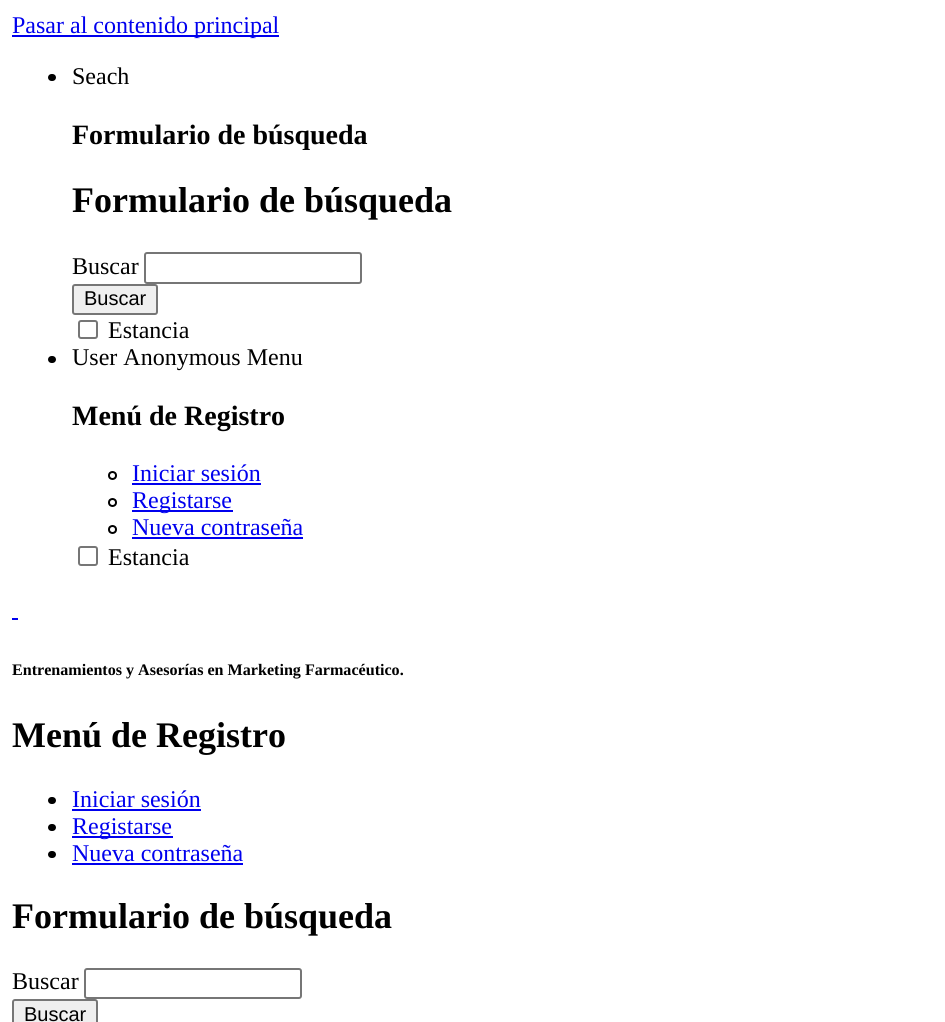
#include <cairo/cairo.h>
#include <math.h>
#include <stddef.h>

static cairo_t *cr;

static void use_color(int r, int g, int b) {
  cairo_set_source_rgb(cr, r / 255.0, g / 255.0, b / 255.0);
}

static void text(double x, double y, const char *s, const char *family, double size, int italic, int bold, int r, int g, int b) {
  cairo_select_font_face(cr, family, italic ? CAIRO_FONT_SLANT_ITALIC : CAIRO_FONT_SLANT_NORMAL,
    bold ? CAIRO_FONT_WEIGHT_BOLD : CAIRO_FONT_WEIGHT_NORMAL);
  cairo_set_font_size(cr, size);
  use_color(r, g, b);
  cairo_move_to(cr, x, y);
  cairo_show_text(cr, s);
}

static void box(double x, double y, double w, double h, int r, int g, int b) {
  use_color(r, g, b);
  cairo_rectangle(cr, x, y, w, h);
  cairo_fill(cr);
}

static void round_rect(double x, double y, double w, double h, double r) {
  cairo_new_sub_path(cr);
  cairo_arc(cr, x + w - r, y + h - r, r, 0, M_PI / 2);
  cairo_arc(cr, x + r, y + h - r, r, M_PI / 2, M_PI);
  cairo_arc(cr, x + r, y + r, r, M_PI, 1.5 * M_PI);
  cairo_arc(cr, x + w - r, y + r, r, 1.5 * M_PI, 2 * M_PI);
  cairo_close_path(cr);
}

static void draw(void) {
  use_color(255, 255, 255);
  cairo_paint(cr);
  box(12, 35, 267, 2, 0, 0, 238);
  use_color(0, 0, 0);
  round_rect(48, 74, 8, 7, 3.5);
  cairo_fill(cr);
  round_rect(145, 253, 216, 30, 2);
  use_color(118, 118, 118);
  cairo_stroke(cr);
  use_color(239, 239, 239);
  round_rect(73, 285, 84, 29, 2);
  cairo_fill_preserve(cr);
  use_color(118, 118, 118);
  cairo_stroke(cr);
  round_rect(79, 321, 18, 17, 2);
  cairo_stroke(cr);
  use_color(0, 0, 0);
  round_rect(48, 356, 8, 7, 3.5);
  cairo_fill(cr);
  cairo_arc(cr, 112.5, 475.5, 3.5, 0, 2 * M_PI);
  cairo_stroke(cr);
  box(132, 483, 129, 2, 0, 0, 238);
  cairo_arc(cr, 112.5, 502.5, 3.5, 0, 2 * M_PI);
  use_color(0, 0, 0);
  cairo_stroke(cr);
  box(132, 510, 101, 2, 0, 0, 238);
  cairo_arc(cr, 112.5, 529.5, 3.5, 0, 2 * M_PI);
  use_color(0, 0, 0);
  cairo_stroke(cr);
  box(132, 537, 171, 2, 0, 0, 238);
  round_rect(79, 547, 18, 18, 2);
  use_color(118, 118, 118);
  cairo_stroke(cr);
  box(12, 618, 6, 2, 0, 0, 238);
  use_color(0, 0, 0);
  round_rect(48, 797, 8, 7, 3.5);
  cairo_fill(cr);
  box(72, 809, 129, 2, 0, 0, 238);
  use_color(0, 0, 0);
  round_rect(48, 824, 8, 7, 3.5);
  cairo_fill(cr);
  box(72, 836, 101, 2, 0, 0, 238);
  use_color(0, 0, 0);
  round_rect(48, 851, 8, 7, 3.5);
  cairo_fill(cr);
  box(72, 863, 171, 2, 0, 0, 238);
  round_rect(85, 969, 216, 29, 2);
  use_color(118, 118, 118);
  cairo_stroke(cr);
  use_color(239, 239, 239);
  round_rect(13, 1000, 84, 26, 2);
  cairo_fill_preserve(cr);
  use_color(118, 118, 118);
  cairo_stroke(cr);
  text(12, 33, "Pasar al contenido principal", "Liberation Serif", 24, 0, 0, 0, 0, 238);
  text(72, 84, "Seach", "Liberation Serif", 24, 0, 0, 0, 0, 0);
  text(72, 144, "Formulario de búsqueda", "Liberation Serif", 28, 0, 1, 0, 0, 0);
  text(72, 212, "Formulario de búsqueda", "Liberation Serif", 36, 0, 1, 0, 0, 0);
  text(72, 274, "Buscar", "Liberation Serif", 24, 0, 0, 0, 0, 0);
  text(84, 305, "Buscar", "Liberation Sans", 20, 0, 0, 0, 0, 0);
  text(108, 338, "Estancia", "Liberation Serif", 24, 0, 0, 0, 0, 0);
  text(72, 365, "User Anonymous Menu", "Liberation Serif", 24, 0, 0, 0, 0, 0);
  text(72, 425, "Menú de Registro", "Liberation Serif", 28, 0, 1, 0, 0, 0);
  text(132, 481, "Iniciar sesión", "Liberation Serif", 24, 0, 0, 0, 0, 238);
  text(132, 508, "Registarse", "Liberation Serif", 24, 0, 0, 0, 0, 238);
  text(132, 535, "Nueva contraseña", "Liberation Serif", 24, 0, 0, 0, 0, 238);
  text(108, 565, "Estancia", "Liberation Serif", 24, 0, 0, 0, 0, 0);
  text(12, 675, "Entrenamientos y Asesorías en Marketing Farmacéutico.", "Liberation Serif", 16.1, 0, 1, 0, 0, 0);
  text(12, 747, "Menú de Registro", "Liberation Serif", 36, 0, 1, 0, 0, 0);
  text(72, 807, "Iniciar sesión", "Liberation Serif", 24, 0, 0, 0, 0, 238);
  text(72, 834, "Registarse", "Liberation Serif", 24, 0, 0, 0, 0, 238);
  text(72, 861, "Nueva contraseña", "Liberation Serif", 24, 0, 0, 0, 0, 238);
  text(12, 928, "Formulario de búsqueda", "Liberation Serif", 36, 0, 1, 0, 0, 0);
  text(12, 989, "Buscar", "Liberation Serif", 24, 0, 0, 0, 0, 0);
  text(24, 1021, "Buscar", "Liberation Sans", 20, 0, 0, 0, 0, 0);
}

int main(void) {
  cairo_surface_t *surface = cairo_image_surface_create(CAIRO_FORMAT_RGB24, 945, 1022);
  cr = cairo_create(surface);
  cairo_font_options_t *options = cairo_font_options_create();
  cairo_font_options_set_hint_metrics(options, CAIRO_HINT_METRICS_OFF);
  cairo_font_options_set_hint_style(options, CAIRO_HINT_STYLE_NONE);
  cairo_set_font_options(cr, options);
  cairo_set_miter_limit(cr, 4);
  draw();
  cairo_surface_write_to_png(surface, "out.png");
  cairo_font_options_destroy(options);
  cairo_destroy(cr);
  cairo_surface_destroy(surface);
  return 0;
}
